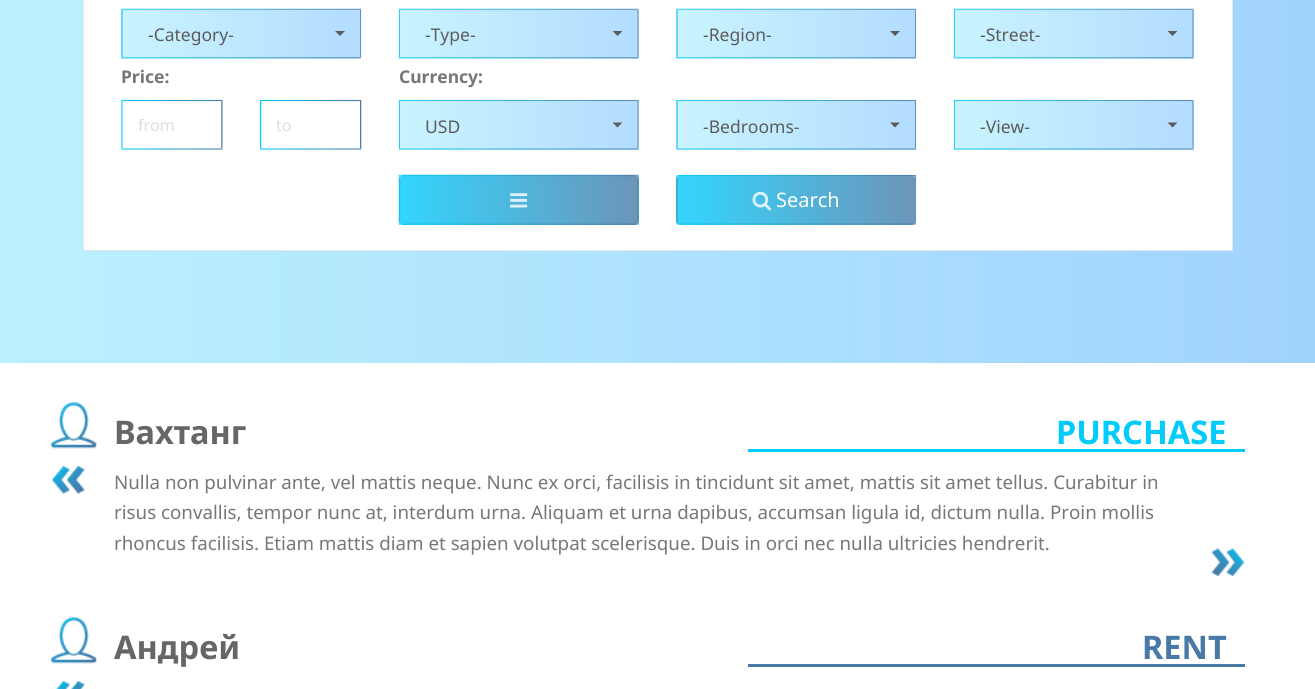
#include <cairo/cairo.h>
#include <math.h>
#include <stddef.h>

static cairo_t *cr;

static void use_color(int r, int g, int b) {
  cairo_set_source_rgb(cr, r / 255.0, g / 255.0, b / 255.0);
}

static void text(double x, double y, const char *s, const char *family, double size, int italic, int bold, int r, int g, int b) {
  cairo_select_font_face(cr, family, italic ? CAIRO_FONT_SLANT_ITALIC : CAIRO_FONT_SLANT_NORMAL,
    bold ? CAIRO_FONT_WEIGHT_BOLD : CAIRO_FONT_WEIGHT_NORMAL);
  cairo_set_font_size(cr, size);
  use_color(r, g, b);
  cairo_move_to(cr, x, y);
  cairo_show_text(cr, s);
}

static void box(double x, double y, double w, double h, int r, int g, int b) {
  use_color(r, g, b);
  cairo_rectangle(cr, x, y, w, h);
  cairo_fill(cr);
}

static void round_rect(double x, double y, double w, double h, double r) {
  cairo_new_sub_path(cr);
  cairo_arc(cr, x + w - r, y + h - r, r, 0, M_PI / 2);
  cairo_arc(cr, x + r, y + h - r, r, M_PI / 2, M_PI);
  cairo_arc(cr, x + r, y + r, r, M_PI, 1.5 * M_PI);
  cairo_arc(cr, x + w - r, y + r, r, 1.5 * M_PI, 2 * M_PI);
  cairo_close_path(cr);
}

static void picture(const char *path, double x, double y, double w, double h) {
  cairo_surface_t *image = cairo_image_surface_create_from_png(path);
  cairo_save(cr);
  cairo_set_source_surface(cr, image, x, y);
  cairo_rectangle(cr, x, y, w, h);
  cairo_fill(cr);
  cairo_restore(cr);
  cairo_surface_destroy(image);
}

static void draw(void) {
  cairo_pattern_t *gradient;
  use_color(255, 255, 255);
  cairo_paint(cr);
  gradient = cairo_pattern_create_linear(0, 132, 1315, 132);
  cairo_pattern_add_color_stop_rgba(gradient, 0, 0.733, 0.945, 0.996, 1);
  cairo_pattern_add_color_stop_rgba(gradient, 1, 0.631, 0.827, 1, 1);
  cairo_set_source(cr, gradient);
  cairo_pattern_destroy(gradient);
  cairo_rectangle(cr, 0, 0, 1315, 363);
  cairo_fill(cr);
  use_color(255, 255, 255);
  round_rect(83.5, -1.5, 1149, 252, 0.5);
  cairo_fill_preserve(cr);
  use_color(230, 230, 230);
  cairo_set_line_width(cr, 1);
  cairo_stroke(cr);
  use_color(247, 247, 247);
  cairo_new_path(cr);
  cairo_move_to(cr, 122, 10);
  cairo_line_to(cr, 360, 10);
  cairo_line_to(cr, 361, 11);
  cairo_curve_to(cr, 361, 10, 361, 9, 360, 9);
  cairo_line_to(cr, 122, 9);
  cairo_curve_to(cr, 121, 9, 121, 10, 121, 11);
  cairo_close_path(cr);
  cairo_fill(cr);
  gradient = cairo_pattern_create_linear(-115, 34, 123, 34);
  cairo_pattern_add_color_stop_rgba(gradient, 0, 0.733, 0.945, 0.996, 0.8);
  cairo_pattern_add_color_stop_rgba(gradient, 1, 0.631, 0.827, 1, 0.8);
  cairo_set_source(cr, gradient);
  cairo_pattern_destroy(gradient);
  cairo_new_path(cr);
  cairo_move_to(cr, 122, 9);
  cairo_line_to(cr, 123, 9);
  cairo_line_to(cr, 123, 59);
  cairo_line_to(cr, 122, 59);
  cairo_curve_to(cr, 121.5, 59, 121, 58.5, 121, 58);
  cairo_line_to(cr, 121, 10);
  cairo_curve_to(cr, 121, 9.5, 121.5, 9, 122, 9);
  cairo_close_path(cr);
  cairo_fill(cr);
  gradient = cairo_pattern_create_linear(123, 34, 360, 34);
  cairo_pattern_add_color_stop_rgba(gradient, 0, 0.733, 0.945, 0.996, 0.8);
  cairo_pattern_add_color_stop_rgba(gradient, 1, 0.631, 0.827, 1, 0.8);
  cairo_set_source(cr, gradient);
  cairo_pattern_destroy(gradient);
  cairo_rectangle(cr, 123, 9, 237, 50);
  cairo_fill(cr);
  gradient = cairo_pattern_create_linear(360, 34, 598, 34);
  cairo_pattern_add_color_stop_rgba(gradient, 0, 0.733, 0.945, 0.996, 0.8);
  cairo_pattern_add_color_stop_rgba(gradient, 1, 0.631, 0.827, 1, 0.8);
  cairo_set_source(cr, gradient);
  cairo_pattern_destroy(gradient);
  cairo_new_path(cr);
  cairo_move_to(cr, 360, 9);
  cairo_curve_to(cr, 360.5, 9, 361, 9.5, 361, 10);
  cairo_line_to(cr, 361, 58);
  cairo_curve_to(cr, 361, 58.5, 360.5, 59, 360, 59);
  cairo_close_path(cr);
  cairo_fill(cr);
  cairo_set_source_rgba(cr, 0.761, 0.761, 0.761, 0.1);
  cairo_rectangle(cr, 123, 10, 237, 1);
  cairo_fill(cr);
  picture("img_01.png", 121, 8, 241, 51);
  use_color(92, 92, 92);
  cairo_new_path(cr);
  cairo_move_to(cr, 335, 31);
  cairo_line_to(cr, 345, 31);
  cairo_line_to(cr, 340, 36);
  cairo_close_path(cr);
  cairo_fill(cr);
  use_color(247, 247, 247);
  cairo_new_path(cr);
  cairo_move_to(cr, 400, 10);
  cairo_line_to(cr, 638, 10);
  cairo_line_to(cr, 639, 11);
  cairo_curve_to(cr, 639, 10, 639, 9, 638, 9);
  cairo_line_to(cr, 400, 9);
  cairo_curve_to(cr, 399, 9, 399, 10, 399, 11);
  cairo_close_path(cr);
  cairo_fill(cr);
  gradient = cairo_pattern_create_linear(163, 34, 400, 34);
  cairo_pattern_add_color_stop_rgba(gradient, 0, 0.733, 0.945, 0.996, 0.8);
  cairo_pattern_add_color_stop_rgba(gradient, 1, 0.631, 0.827, 1, 0.8);
  cairo_set_source(cr, gradient);
  cairo_pattern_destroy(gradient);
  cairo_new_path(cr);
  cairo_move_to(cr, 400, 9);
  cairo_line_to(cr, 400, 59);
  cairo_curve_to(cr, 399.5, 59, 399, 58.5, 399, 58);
  cairo_line_to(cr, 399, 10);
  cairo_curve_to(cr, 399, 9.5, 399.5, 9, 400, 9);
  cairo_close_path(cr);
  cairo_fill(cr);
  gradient = cairo_pattern_create_linear(400, 34, 638, 34);
  cairo_pattern_add_color_stop_rgba(gradient, 0, 0.733, 0.945, 0.996, 0.8);
  cairo_pattern_add_color_stop_rgba(gradient, 1, 0.631, 0.827, 1, 0.8);
  cairo_set_source(cr, gradient);
  cairo_pattern_destroy(gradient);
  cairo_rectangle(cr, 400, 9, 238, 50);
  cairo_fill(cr);
  gradient = cairo_pattern_create_linear(638, 34, 875, 34);
  cairo_pattern_add_color_stop_rgba(gradient, 0, 0.733, 0.945, 0.996, 0.8);
  cairo_pattern_add_color_stop_rgba(gradient, 1, 0.631, 0.827, 1, 0.8);
  cairo_set_source(cr, gradient);
  cairo_pattern_destroy(gradient);
  cairo_new_path(cr);
  cairo_move_to(cr, 638, 9);
  cairo_curve_to(cr, 638.5, 9, 639, 9.5, 639, 10);
  cairo_line_to(cr, 639, 58);
  cairo_curve_to(cr, 639, 58.5, 638.5, 59, 638, 59);
  cairo_close_path(cr);
  cairo_fill(cr);
  cairo_set_source_rgba(cr, 0.761, 0.761, 0.761, 0.1);
  cairo_rectangle(cr, 400, 10, 238, 1);
  cairo_fill(cr);
  picture("img_02.png", 398, 8, 241, 51);
  use_color(92, 92, 92);
  cairo_new_path(cr);
  cairo_move_to(cr, 612.5, 31);
  cairo_line_to(cr, 622.5, 31);
  cairo_line_to(cr, 617.5, 36);
  cairo_close_path(cr);
  cairo_fill(cr);
  gradient = cairo_pattern_create_linear(440, 34, 678, 34);
  cairo_pattern_add_color_stop_rgba(gradient, 0, 0.788, 0.957, 0.996, 1);
  cairo_pattern_add_color_stop_rgba(gradient, 1, 0.706, 0.863, 1, 1);
  cairo_set_source(cr, gradient);
  cairo_pattern_destroy(gradient);
  cairo_new_path(cr);
  cairo_move_to(cr, 677, 9);
  cairo_line_to(cr, 678, 9);
  cairo_line_to(cr, 678, 59);
  cairo_line_to(cr, 677, 59);
  cairo_curve_to(cr, 676.5, 59, 676, 58.5, 676, 58);
  cairo_line_to(cr, 676, 10);
  cairo_curve_to(cr, 676, 9.5, 676.5, 9, 677, 9);
  cairo_close_path(cr);
  cairo_fill(cr);
  gradient = cairo_pattern_create_linear(678, 34, 915, 34);
  cairo_pattern_add_color_stop_rgba(gradient, 0, 0.788, 0.957, 0.996, 1);
  cairo_pattern_add_color_stop_rgba(gradient, 1, 0.706, 0.863, 1, 1);
  cairo_set_source(cr, gradient);
  cairo_pattern_destroy(gradient);
  cairo_rectangle(cr, 678, 9, 237, 50);
  cairo_fill(cr);
  gradient = cairo_pattern_create_linear(678, 34, 915, 34);
  cairo_pattern_add_color_stop_rgba(gradient, 0, 0.784, 0.937, 0.973, 1);
  cairo_pattern_add_color_stop_rgba(gradient, 1, 0.71, 0.851, 0.976, 1);
  cairo_set_source(cr, gradient);
  cairo_pattern_destroy(gradient);
  cairo_rectangle(cr, 678, 10, 237, 1);
  cairo_fill(cr);
  gradient = cairo_pattern_create_linear(915, 34, 1153, 34);
  cairo_pattern_add_color_stop_rgba(gradient, 0, 0.788, 0.957, 0.996, 1);
  cairo_pattern_add_color_stop_rgba(gradient, 1, 0.706, 0.863, 1, 1);
  cairo_set_source(cr, gradient);
  cairo_pattern_destroy(gradient);
  cairo_new_path(cr);
  cairo_move_to(cr, 915, 9);
  cairo_curve_to(cr, 915.5, 9, 916, 9.5, 916, 10);
  cairo_line_to(cr, 916, 58);
  cairo_curve_to(cr, 916, 58.5, 915.5, 59, 915, 59);
  cairo_close_path(cr);
  cairo_fill(cr);
  picture("img_03.png", 676, 8, 241, 51);
  use_color(92, 92, 92);
  cairo_new_path(cr);
  cairo_move_to(cr, 890, 31);
  cairo_line_to(cr, 900, 31);
  cairo_line_to(cr, 895, 36);
  cairo_close_path(cr);
  cairo_fill(cr);
  gradient = cairo_pattern_create_linear(718, 34, 955, 34);
  cairo_pattern_add_color_stop_rgba(gradient, 0, 0.788, 0.957, 0.996, 1);
  cairo_pattern_add_color_stop_rgba(gradient, 1, 0.706, 0.863, 1, 1);
  cairo_set_source(cr, gradient);
  cairo_pattern_destroy(gradient);
  cairo_new_path(cr);
  cairo_move_to(cr, 955, 9);
  cairo_line_to(cr, 955, 59);
  cairo_curve_to(cr, 954.5, 59, 954, 58.5, 954, 58);
  cairo_line_to(cr, 954, 10);
  cairo_curve_to(cr, 954, 9.5, 954.5, 9, 955, 9);
  cairo_close_path(cr);
  cairo_fill(cr);
  gradient = cairo_pattern_create_linear(955, 34, 1193, 34);
  cairo_pattern_add_color_stop_rgba(gradient, 0, 0.788, 0.957, 0.996, 1);
  cairo_pattern_add_color_stop_rgba(gradient, 1, 0.706, 0.863, 1, 1);
  cairo_set_source(cr, gradient);
  cairo_pattern_destroy(gradient);
  cairo_rectangle(cr, 955, 9, 238, 50);
  cairo_fill(cr);
  gradient = cairo_pattern_create_linear(955, 34, 1193, 34);
  cairo_pattern_add_color_stop_rgba(gradient, 0, 0.784, 0.937, 0.973, 1);
  cairo_pattern_add_color_stop_rgba(gradient, 1, 0.71, 0.851, 0.976, 1);
  cairo_set_source(cr, gradient);
  cairo_pattern_destroy(gradient);
  cairo_rectangle(cr, 955, 10, 238, 1);
  cairo_fill(cr);
  gradient = cairo_pattern_create_linear(1193, 34, 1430, 34);
  cairo_pattern_add_color_stop_rgba(gradient, 0, 0.788, 0.957, 0.996, 1);
  cairo_pattern_add_color_stop_rgba(gradient, 1, 0.706, 0.863, 1, 1);
  cairo_set_source(cr, gradient);
  cairo_pattern_destroy(gradient);
  cairo_new_path(cr);
  cairo_move_to(cr, 1193, 9);
  cairo_curve_to(cr, 1193.5, 9, 1194, 9.5, 1194, 10);
  cairo_line_to(cr, 1194, 58);
  cairo_curve_to(cr, 1194, 58.5, 1193.5, 59, 1193, 59);
  cairo_close_path(cr);
  cairo_fill(cr);
  picture("img_04.png", 953, 8, 241, 51);
  use_color(92, 92, 92);
  cairo_new_path(cr);
  cairo_move_to(cr, 1167.5, 31);
  cairo_line_to(cr, 1177.5, 31);
  cairo_line_to(cr, 1172.5, 36);
  cairo_close_path(cr);
  cairo_fill(cr);
  box(123, 101, 98, 1, 247, 247, 247);
  picture("img_05.png", 121, 99, 102, 51);
  box(261, 101, 99, 1, 247, 247, 247);
  picture("img_06.png", 260, 99, 102, 51);
  cairo_new_path(cr);
  cairo_move_to(cr, 400, 101);
  cairo_line_to(cr, 638, 101);
  cairo_line_to(cr, 639, 102);
  cairo_curve_to(cr, 639, 101, 639, 100, 638, 100);
  cairo_line_to(cr, 400, 100);
  cairo_curve_to(cr, 399, 100, 399, 101, 399, 102);
  cairo_close_path(cr);
  cairo_fill(cr);
  gradient = cairo_pattern_create_linear(163, 125, 400, 125);
  cairo_pattern_add_color_stop_rgba(gradient, 0, 0.733, 0.945, 0.996, 0.8);
  cairo_pattern_add_color_stop_rgba(gradient, 1, 0.631, 0.827, 1, 0.8);
  cairo_set_source(cr, gradient);
  cairo_pattern_destroy(gradient);
  cairo_new_path(cr);
  cairo_move_to(cr, 400, 100);
  cairo_line_to(cr, 400, 150);
  cairo_curve_to(cr, 399.5, 150, 399, 149.5, 399, 149);
  cairo_line_to(cr, 399, 101);
  cairo_curve_to(cr, 399, 100.5, 399.5, 100, 400, 100);
  cairo_close_path(cr);
  cairo_fill(cr);
  gradient = cairo_pattern_create_linear(400, 125, 638, 125);
  cairo_pattern_add_color_stop_rgba(gradient, 0, 0.733, 0.945, 0.996, 0.8);
  cairo_pattern_add_color_stop_rgba(gradient, 1, 0.631, 0.827, 1, 0.8);
  cairo_set_source(cr, gradient);
  cairo_pattern_destroy(gradient);
  cairo_rectangle(cr, 400, 100, 238, 50);
  cairo_fill(cr);
  gradient = cairo_pattern_create_linear(638, 125, 875, 125);
  cairo_pattern_add_color_stop_rgba(gradient, 0, 0.733, 0.945, 0.996, 0.8);
  cairo_pattern_add_color_stop_rgba(gradient, 1, 0.631, 0.827, 1, 0.8);
  cairo_set_source(cr, gradient);
  cairo_pattern_destroy(gradient);
  cairo_new_path(cr);
  cairo_move_to(cr, 638, 100);
  cairo_curve_to(cr, 638.5, 100, 639, 100.5, 639, 101);
  cairo_line_to(cr, 639, 149);
  cairo_curve_to(cr, 639, 149.5, 638.5, 150, 638, 150);
  cairo_close_path(cr);
  cairo_fill(cr);
  cairo_set_source_rgba(cr, 0.761, 0.761, 0.761, 0.1);
  cairo_rectangle(cr, 400, 101, 238, 1);
  cairo_fill(cr);
  picture("img_07.png", 398, 99, 241, 51);
  use_color(92, 92, 92);
  cairo_new_path(cr);
  cairo_move_to(cr, 612.5, 122.5);
  cairo_line_to(cr, 622.5, 122.5);
  cairo_line_to(cr, 617.5, 127.5);
  cairo_close_path(cr);
  cairo_fill(cr);
  use_color(247, 247, 247);
  cairo_new_path(cr);
  cairo_move_to(cr, 678, 101);
  cairo_line_to(cr, 915, 101);
  cairo_line_to(cr, 916, 102);
  cairo_curve_to(cr, 916, 101, 916, 100, 915, 100);
  cairo_line_to(cr, 677, 100);
  cairo_curve_to(cr, 676, 100, 676, 101, 676, 102);
  cairo_close_path(cr);
  cairo_fill(cr);
  gradient = cairo_pattern_create_linear(440, 125, 678, 125);
  cairo_pattern_add_color_stop_rgba(gradient, 0, 0.733, 0.945, 0.996, 0.8);
  cairo_pattern_add_color_stop_rgba(gradient, 1, 0.631, 0.827, 1, 0.8);
  cairo_set_source(cr, gradient);
  cairo_pattern_destroy(gradient);
  cairo_new_path(cr);
  cairo_move_to(cr, 677, 100);
  cairo_line_to(cr, 678, 100);
  cairo_line_to(cr, 678, 150);
  cairo_line_to(cr, 677, 150);
  cairo_curve_to(cr, 676.5, 150, 676, 149.5, 676, 149);
  cairo_line_to(cr, 676, 101);
  cairo_curve_to(cr, 676, 100.5, 676.5, 100, 677, 100);
  cairo_close_path(cr);
  cairo_fill(cr);
  gradient = cairo_pattern_create_linear(678, 125, 915, 125);
  cairo_pattern_add_color_stop_rgba(gradient, 0, 0.733, 0.945, 0.996, 0.8);
  cairo_pattern_add_color_stop_rgba(gradient, 1, 0.631, 0.827, 1, 0.8);
  cairo_set_source(cr, gradient);
  cairo_pattern_destroy(gradient);
  cairo_rectangle(cr, 678, 100, 237, 50);
  cairo_fill(cr);
  gradient = cairo_pattern_create_linear(915, 125, 1153, 125);
  cairo_pattern_add_color_stop_rgba(gradient, 0, 0.733, 0.945, 0.996, 0.8);
  cairo_pattern_add_color_stop_rgba(gradient, 1, 0.631, 0.827, 1, 0.8);
  cairo_set_source(cr, gradient);
  cairo_pattern_destroy(gradient);
  cairo_new_path(cr);
  cairo_move_to(cr, 915, 100);
  cairo_curve_to(cr, 915.5, 100, 916, 100.5, 916, 101);
  cairo_line_to(cr, 916, 149);
  cairo_curve_to(cr, 916, 149.5, 915.5, 150, 915, 150);
  cairo_close_path(cr);
  cairo_fill(cr);
  cairo_set_source_rgba(cr, 0.761, 0.761, 0.761, 0.1);
  cairo_rectangle(cr, 678, 101, 237, 1);
  cairo_fill(cr);
  picture("img_08.png", 676, 99, 241, 51);
  use_color(92, 92, 92);
  cairo_new_path(cr);
  cairo_move_to(cr, 890, 122.5);
  cairo_line_to(cr, 900, 122.5);
  cairo_line_to(cr, 895, 127.5);
  cairo_close_path(cr);
  cairo_fill(cr);
  use_color(247, 247, 247);
  cairo_new_path(cr);
  cairo_move_to(cr, 955, 101);
  cairo_line_to(cr, 1192, 101);
  cairo_line_to(cr, 1194, 102);
  cairo_curve_to(cr, 1194, 101, 1194, 100, 1193, 100);
  cairo_line_to(cr, 955, 100);
  cairo_curve_to(cr, 954, 100, 954, 101, 954, 102);
  cairo_close_path(cr);
  cairo_fill(cr);
  gradient = cairo_pattern_create_linear(718, 125, 955, 125);
  cairo_pattern_add_color_stop_rgba(gradient, 0, 0.733, 0.945, 0.996, 0.8);
  cairo_pattern_add_color_stop_rgba(gradient, 1, 0.631, 0.827, 1, 0.8);
  cairo_set_source(cr, gradient);
  cairo_pattern_destroy(gradient);
  cairo_new_path(cr);
  cairo_move_to(cr, 955, 100);
  cairo_line_to(cr, 955, 150);
  cairo_curve_to(cr, 954.5, 150, 954, 149.5, 954, 149);
  cairo_line_to(cr, 954, 101);
  cairo_curve_to(cr, 954, 100.5, 954.5, 100, 955, 100);
  cairo_close_path(cr);
  cairo_fill(cr);
  gradient = cairo_pattern_create_linear(955, 125, 1193, 125);
  cairo_pattern_add_color_stop_rgba(gradient, 0, 0.733, 0.945, 0.996, 0.8);
  cairo_pattern_add_color_stop_rgba(gradient, 1, 0.631, 0.827, 1, 0.8);
  cairo_set_source(cr, gradient);
  cairo_pattern_destroy(gradient);
  cairo_rectangle(cr, 955, 100, 238, 50);
  cairo_fill(cr);
  gradient = cairo_pattern_create_linear(1193, 125, 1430, 125);
  cairo_pattern_add_color_stop_rgba(gradient, 0, 0.733, 0.945, 0.996, 0.8);
  cairo_pattern_add_color_stop_rgba(gradient, 1, 0.631, 0.827, 1, 0.8);
  cairo_set_source(cr, gradient);
  cairo_pattern_destroy(gradient);
  cairo_new_path(cr);
  cairo_move_to(cr, 1193, 100);
  cairo_curve_to(cr, 1193.5, 100, 1194, 100.5, 1194, 101);
  cairo_line_to(cr, 1194, 149);
  cairo_curve_to(cr, 1194, 149.5, 1193.5, 150, 1193, 150);
  cairo_close_path(cr);
  cairo_fill(cr);
  cairo_set_source_rgba(cr, 0.761, 0.761, 0.761, 0.1);
  cairo_rectangle(cr, 955, 101, 238, 1);
  cairo_fill(cr);
  picture("img_09.png", 953, 99, 241, 51);
  use_color(92, 92, 92);
  cairo_new_path(cr);
  cairo_move_to(cr, 1167.5, 122.5);
  cairo_line_to(cr, 1177.5, 122.5);
  cairo_line_to(cr, 1172.5, 127.5);
  cairo_close_path(cr);
  cairo_fill(cr);
  cairo_save(cr);
  round_rect(399, 175, 240, 50, 5);
  cairo_clip(cr);
  gradient = cairo_pattern_create_linear(163, 200, 400, 200);
  cairo_pattern_add_color_stop_rgba(gradient, 0, 0.2, 0.835, 0.992, 1);
  cairo_pattern_add_color_stop_rgba(gradient, 1, 0.427, 0.584, 0.725, 1);
  cairo_set_source(cr, gradient);
  cairo_pattern_destroy(gradient);
  cairo_rectangle(cr, 399, 175, 1, 50);
  cairo_fill(cr);
  gradient = cairo_pattern_create_linear(400, 200, 638, 200);
  cairo_pattern_add_color_stop_rgba(gradient, 0, 0.2, 0.835, 0.992, 1);
  cairo_pattern_add_color_stop_rgba(gradient, 1, 0.427, 0.584, 0.725, 1);
  cairo_set_source(cr, gradient);
  cairo_pattern_destroy(gradient);
  cairo_rectangle(cr, 400, 175, 238, 50);
  cairo_fill(cr);
  gradient = cairo_pattern_create_linear(638, 200, 875, 200);
  cairo_pattern_add_color_stop_rgba(gradient, 0, 0.2, 0.835, 0.992, 1);
  cairo_pattern_add_color_stop_rgba(gradient, 1, 0.427, 0.584, 0.725, 1);
  cairo_set_source(cr, gradient);
  cairo_pattern_destroy(gradient);
  cairo_rectangle(cr, 638, 175, 1, 50);
  cairo_fill(cr);
  cairo_restore(cr);
  picture("img_10.png", 398, 174, 241, 51);
  picture("img_11.png", 510, 193, 18, 15);
  cairo_save(cr);
  round_rect(676, 175, 240, 50, 5);
  cairo_clip(cr);
  gradient = cairo_pattern_create_linear(440, 200, 678, 200);
  cairo_pattern_add_color_stop_rgba(gradient, 0, 0.2, 0.835, 0.992, 1);
  cairo_pattern_add_color_stop_rgba(gradient, 1, 0.427, 0.584, 0.725, 1);
  cairo_set_source(cr, gradient);
  cairo_pattern_destroy(gradient);
  cairo_rectangle(cr, 676, 175, 2, 50);
  cairo_fill(cr);
  gradient = cairo_pattern_create_linear(678, 200, 915, 200);
  cairo_pattern_add_color_stop_rgba(gradient, 0, 0.2, 0.835, 0.992, 1);
  cairo_pattern_add_color_stop_rgba(gradient, 1, 0.427, 0.584, 0.725, 1);
  cairo_set_source(cr, gradient);
  cairo_pattern_destroy(gradient);
  cairo_rectangle(cr, 678, 175, 237, 50);
  cairo_fill(cr);
  cairo_restore(cr);
  picture("img_12.png", 676, 174, 241, 51);
  picture("img_13.png", 752, 191, 19, 20);
  picture("img_14.png", 51, 402, 46, 47);
  box(748, 449, 497, 3, 0, 203, 253);
  picture("img_15.png", 51, 466, 34, 28);
  picture("img_16.png", 1211, 548, 34, 28);
  picture("img_17.png", 51, 617, 46, 47);
  box(748, 664, 497, 3, 73, 121, 167);
  picture("img_18.png", 56, 681, 29, 8);
  text(148, 41, "-Category-", "Noto Sans", 17.5, 0, 0, 92, 92, 92);
  text(425, 41, "-Type-", "Noto Sans", 17.5, 0, 0, 92, 92, 92);
  text(703, 41, "-Region-", "Noto Sans", 17.5, 0, 0, 92, 92, 92);
  text(980, 41, "-Street-", "Noto Sans", 17.5, 0, 0, 92, 92, 92);
  text(121, 83, "Price:", "Noto Sans", 17.5, 0, 1, 119, 119, 119);
  text(138, 131, "from", "Noto Sans", 16, 0, 0, 221, 221, 221);
  text(276, 131, "to", "Noto Sans", 16, 0, 0, 221, 221, 221);
  text(399, 83, "Currency:", "Noto Sans", 17.5, 0, 1, 119, 119, 119);
  text(425, 133, "USD", "Noto Sans", 17.5, 0, 0, 92, 92, 92);
  text(703, 133, "-Bedrooms-", "Noto Sans", 17.5, 0, 0, 92, 92, 92);
  text(980, 133, "-View-", "Noto Sans", 17.5, 0, 0, 92, 92, 92);
  text(776, 207, "Search", "Noto Sans", 20, 0, 0, 255, 255, 255);
  text(114, 444, "Вахтанг", "Noto Sans", 32.5, 0, 1, 102, 102, 102);
  text(1056, 444, "PURCHASE", "Noto Sans", 32.5, 0, 1, 0, 203, 253);
  text(114, 489, "Nulla non pulvinar ante, vel mattis neque. Nunc ex orci, facilisis in tincidunt sit amet, mattis sit amet tellus. Curabitur in", "Noto Sans", 18.75, 0, 0, 119, 119, 119);
  text(114, 519, "risus convallis, tempor nunc at, interdum urna. Aliquam et urna dapibus, accumsan ligula id, dictum nulla. Proin mollis", "Noto Sans", 18.75, 0, 0, 119, 119, 119);
  text(114, 550, "rhoncus facilisis. Etiam mattis diam et sapien volutpat scelerisque. Duis in orci nec nulla ultricies hendrerit.", "Noto Sans", 18.75, 0, 0, 119, 119, 119);
  text(114, 659, "Андрей", "Noto Sans", 32.5, 0, 1, 102, 102, 102);
  text(1142, 659, "RENT", "Noto Sans", 32.5, 0, 1, 73, 121, 167);
}

int main(void) {
  cairo_surface_t *surface = cairo_image_surface_create(CAIRO_FORMAT_RGB24, 1315, 689);
  cr = cairo_create(surface);
  cairo_font_options_t *options = cairo_font_options_create();
  cairo_font_options_set_hint_metrics(options, CAIRO_HINT_METRICS_OFF);
  cairo_font_options_set_hint_style(options, CAIRO_HINT_STYLE_NONE);
  cairo_set_font_options(cr, options);
  cairo_set_miter_limit(cr, 4);
  draw();
  cairo_surface_write_to_png(surface, "out.png");
  cairo_font_options_destroy(options);
  cairo_destroy(cr);
  cairo_surface_destroy(surface);
  return 0;
}
